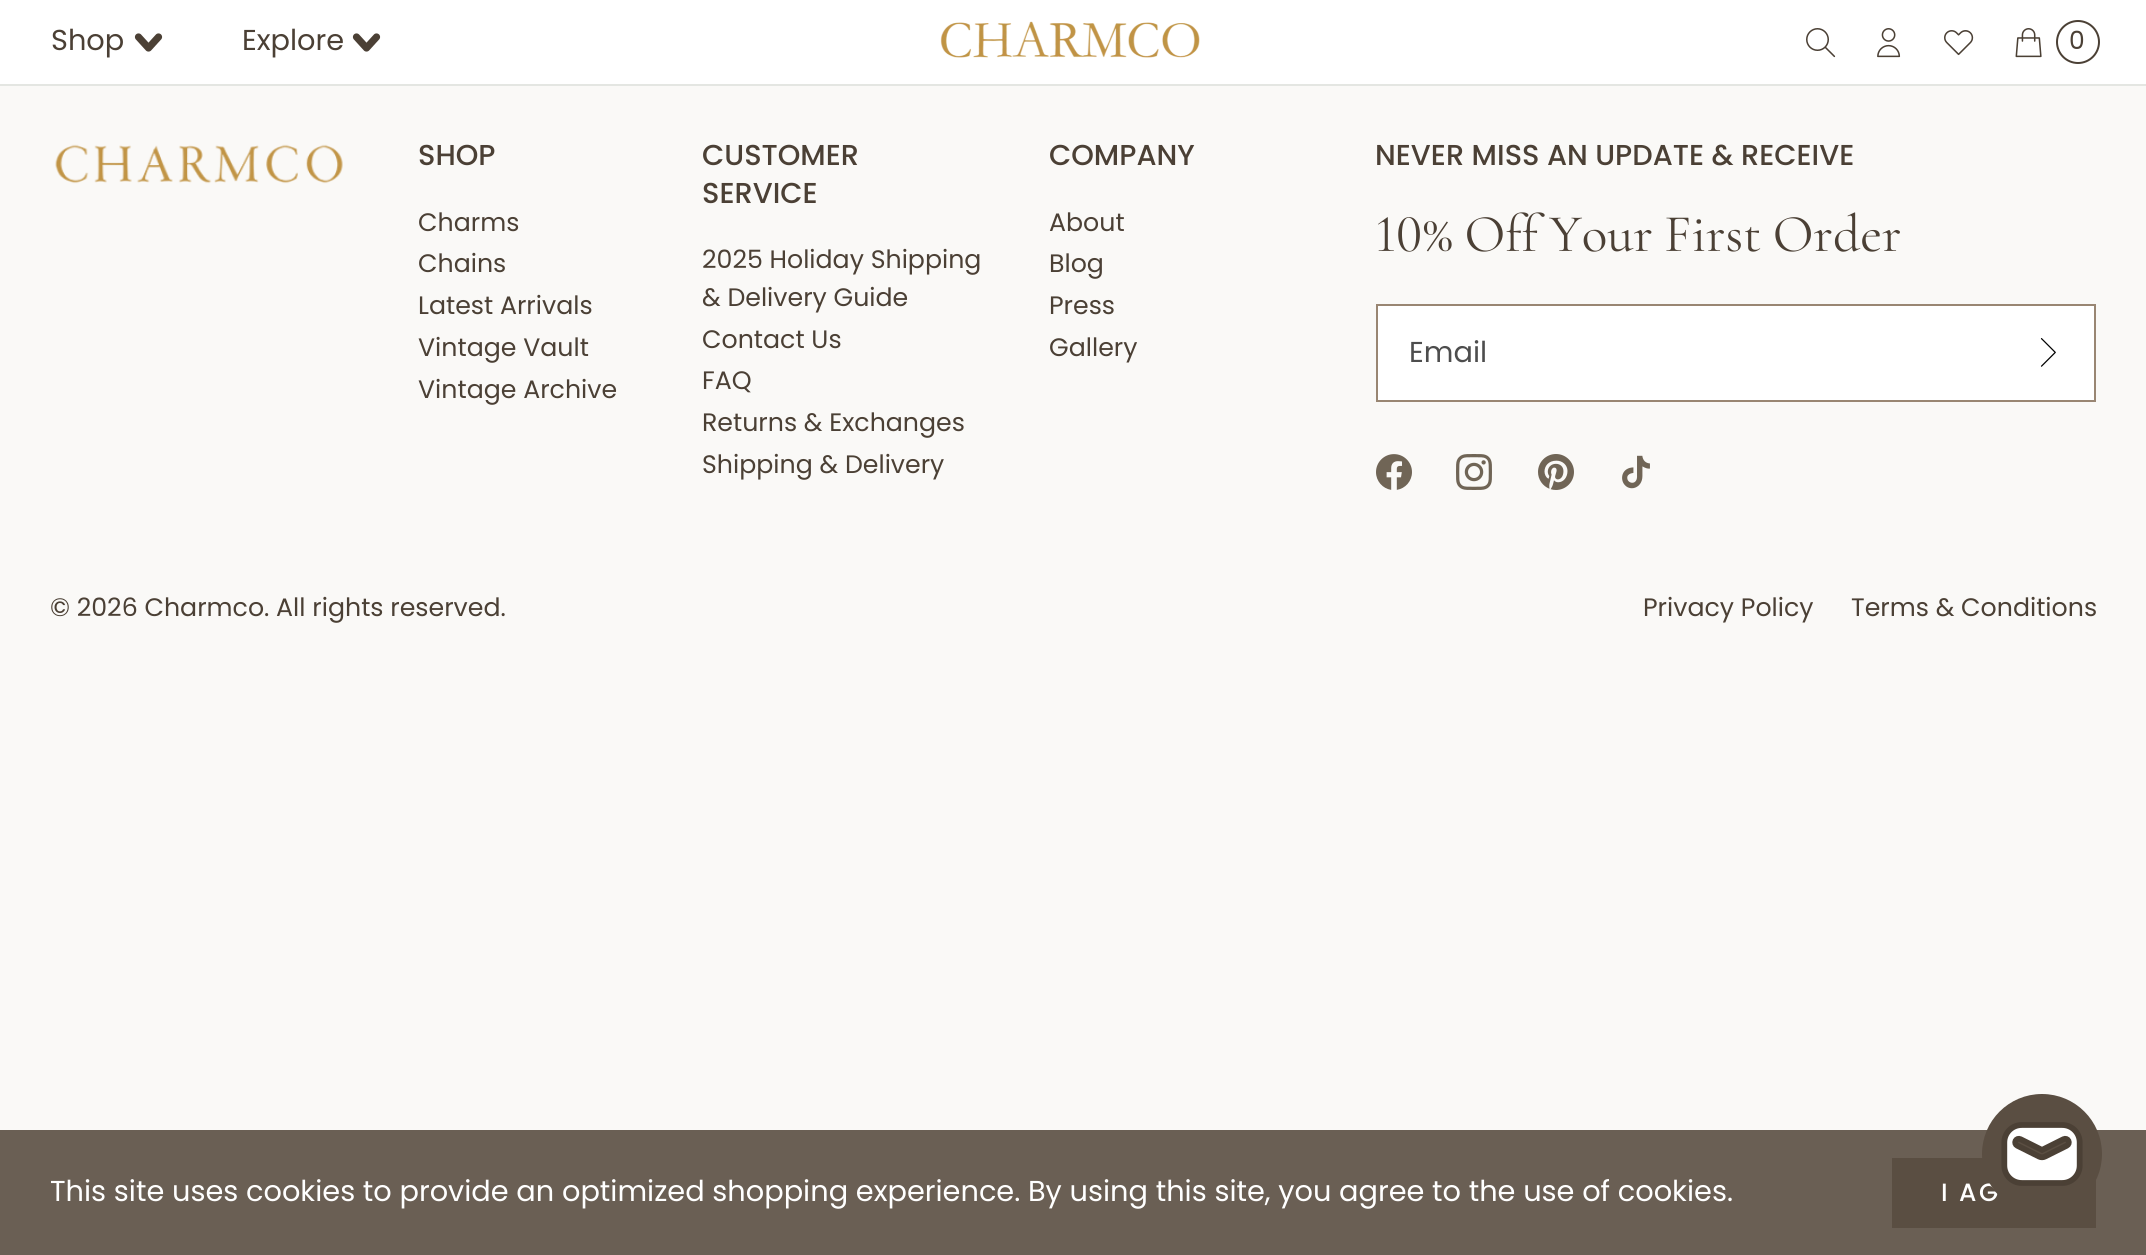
#include <cairo/cairo.h>
#include <math.h>
#include <stddef.h>

static cairo_t *cr;

static void use_color(int r, int g, int b) {
  cairo_set_source_rgb(cr, r / 255.0, g / 255.0, b / 255.0);
}

static void text(double x, double y, const char *s, const char *family, double size, int italic, int bold, int r, int g, int b) {
  cairo_select_font_face(cr, family, italic ? CAIRO_FONT_SLANT_ITALIC : CAIRO_FONT_SLANT_NORMAL,
    bold ? CAIRO_FONT_WEIGHT_BOLD : CAIRO_FONT_WEIGHT_NORMAL);
  cairo_set_font_size(cr, size);
  use_color(r, g, b);
  cairo_move_to(cr, x, y);
  cairo_show_text(cr, s);
}

static void spaced_text(double x, double y, const char *s, double letter, double word) {
  cairo_move_to(cr, x, y);
  while (*s) {
    char ch[5] = {0};
    int n = 0;
    do ch[n++] = *s++; while ((*s & 0xC0) == 0x80);
    cairo_show_text(cr, ch);
    cairo_rel_move_to(cr, letter + word * (*ch == ' '), 0);
  }
}

static void box(double x, double y, double w, double h, int r, int g, int b) {
  use_color(r, g, b);
  cairo_rectangle(cr, x, y, w, h);
  cairo_fill(cr);
}

static void picture(const char *path, double x, double y, double w, double h) {
  cairo_surface_t *image = cairo_image_surface_create_from_png(path);
  cairo_save(cr);
  cairo_set_source_surface(cr, image, x, y);
  cairo_rectangle(cr, x, y, w, h);
  cairo_fill(cr);
  cairo_restore(cr);
  cairo_surface_destroy(image);
}

static void draw(void) {
  use_color(250, 249, 247);
  cairo_paint(cr);
  box(0, 0, 2146, 84, 255, 255, 255);
  box(0, 84, 2146, 2, 228, 230, 226);
  cairo_new_path(cr);
  cairo_move_to(cr, 158.5, 37);
  cairo_line_to(cr, 148.5, 48);
  cairo_line_to(cr, 138.5, 37);
  use_color(75, 64, 53);
  cairo_set_line_width(cr, 7.2);
  cairo_set_line_cap(cr, CAIRO_LINE_CAP_ROUND);
  cairo_set_line_join(cr, CAIRO_LINE_JOIN_ROUND);
  cairo_stroke(cr);
  cairo_new_path(cr);
  cairo_move_to(cr, 376.5, 37);
  cairo_line_to(cr, 366.5, 48);
  cairo_line_to(cr, 356.5, 37);
  cairo_stroke(cr);
  picture("img_01.png", 940, 21, 260, 37);
  picture("img_02.png", 1806, 28, 30, 30);
  picture("img_03.png", 1877, 28, 24, 30);
  picture("img_04.png", 1944, 30, 30, 26);
  picture("img_05.png", 2015, 28, 27, 30);
  cairo_arc(cr, 2078, 42, 21, 0, 2 * M_PI);
  cairo_set_line_width(cr, 2);
  cairo_set_line_cap(cr, CAIRO_LINE_CAP_BUTT);
  cairo_set_line_join(cr, CAIRO_LINE_JOIN_MITER);
  cairo_stroke(cr);
  picture("img_06.png", 55, 144, 288, 40);
  use_color(255, 255, 255);
  cairo_rectangle(cr, 1377, 305, 718, 96);
  cairo_fill_preserve(cr);
  use_color(153, 134, 115);
  cairo_stroke(cr);
  picture("img_07.png", 2040, 338, 16, 29);
  picture("img_08.png", 1376, 454, 36, 36);
  picture("img_09.png", 1456, 454, 36, 36);
  picture("img_10.png", 1538, 454, 36, 36);
  picture("img_11.png", 1622, 455, 28, 34);
  box(0, 1130, 2146, 125, 106, 95, 84);
  box(1892, 1158, 204, 70, 90, 78, 66);
  text(51, 50, "Shop", "Poppins", 28.8, 0, 0, 75, 64, 53);
  text(242, 50, "Explore", "Poppins", 28.8, 0, 0, 75, 64, 53);
  text(2069, 49, "0", "Poppins", 25, 0, 0, 75, 64, 53);
  text(418, 165, "SHOP", "Poppins Medium", 28.8, 0, 0, 75, 64, 53);
  text(418, 231, "Charms", "Poppins", 25.25, 0, 0, 75, 64, 53);
  text(418, 272, "Chains", "Poppins", 25.25, 0, 0, 75, 64, 53);
  text(418, 314, "Latest Arrivals", "Poppins", 25.25, 0, 0, 75, 64, 53);
  text(418, 356, "Vintage Vault", "Poppins", 25.25, 0, 0, 75, 64, 53);
  text(418, 398, "Vintage Archive", "Poppins", 25.25, 0, 0, 75, 64, 53);
  text(702, 165, "CUSTOMER", "Poppins Medium", 28.8, 0, 0, 75, 64, 53);
  text(702, 203, "SERVICE", "Poppins Medium", 28.8, 0, 0, 75, 64, 53);
  text(702, 268, "2025 Holiday Shipping", "Poppins", 25.25, 0, 0, 75, 64, 53);
  text(702, 306, "& Delivery Guide", "Poppins", 25.25, 0, 0, 75, 64, 53);
  text(702, 348, "Contact Us", "Poppins", 25.25, 0, 0, 75, 64, 53);
  text(702, 389, "FAQ", "Poppins", 25.25, 0, 0, 75, 64, 53);
  text(702, 431, "Returns & Exchanges", "Poppins", 25.25, 0, 0, 75, 64, 53);
  text(702, 473, "Shipping & Delivery", "Poppins", 25.25, 0, 0, 75, 64, 53);
  text(1049, 165, "COMPANY", "Poppins Medium", 28.8, 0, 0, 75, 64, 53);
  text(1049, 231, "About", "Poppins", 25.25, 0, 0, 75, 64, 53);
  text(1049, 272, "Blog", "Poppins", 25.25, 0, 0, 75, 64, 53);
  text(1049, 314, "Press", "Poppins", 25.25, 0, 0, 75, 64, 53);
  text(1049, 356, "Gallery", "Poppins", 25.25, 0, 0, 75, 64, 53);
  text(1375, 165, "NEVER MISS AN UPDATE & RECEIVE", "Poppins Medium", 28.8, 0, 0, 75, 64, 53);
  cairo_select_font_face(cr, "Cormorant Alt", CAIRO_FONT_SLANT_NORMAL, CAIRO_FONT_WEIGHT_NORMAL);
  cairo_set_font_size(cr, 53.25);
  spaced_text(1375, 251, "10% Off Your First Order", 0, -1);
  text(1409, 362, "Email", "Poppins", 28.8, 0, 0, 77, 77, 77);
  text(50, 616, "© 2026 Charmco. All rights reserved.", "Poppins", 25.25, 0, 0, 75, 64, 53);
  text(1643, 616, "Privacy Policy", "Poppins", 25.25, 0, 0, 75, 64, 53);
  text(1851, 616, "Terms & Conditions", "Poppins", 25.25, 0, 0, 75, 64, 53);
  text(50, 1201, "This site uses cookies to provide an optimized shopping experience. By using this site, you agree to the use of cookies.", "Poppins", 28.8, 0, 0, 255, 255, 255);
  cairo_select_font_face(cr, "Poppins Medium", CAIRO_FONT_SLANT_NORMAL, CAIRO_FONT_WEIGHT_NORMAL);
  cairo_set_font_size(cr, 25);
  spaced_text(1941, 1201, "I AG", 2.5, 0);
  use_color(90, 78, 66);
  cairo_new_path(cr);
  cairo_arc(cr, 2042, 1154, 60, 0, 2 * M_PI);
  cairo_fill(cr);
  picture("img_12.png", 2001, 1122, 82, 64);
}

int main(void) {
  cairo_surface_t *surface = cairo_image_surface_create(CAIRO_FORMAT_RGB24, 2146, 1255);
  cr = cairo_create(surface);
  cairo_font_options_t *options = cairo_font_options_create();
  cairo_font_options_set_hint_metrics(options, CAIRO_HINT_METRICS_OFF);
  cairo_font_options_set_hint_style(options, CAIRO_HINT_STYLE_NONE);
  cairo_set_font_options(cr, options);
  cairo_set_miter_limit(cr, 4);
  draw();
  cairo_surface_write_to_png(surface, "out.png");
  cairo_font_options_destroy(options);
  cairo_destroy(cr);
  cairo_surface_destroy(surface);
  return 0;
}
